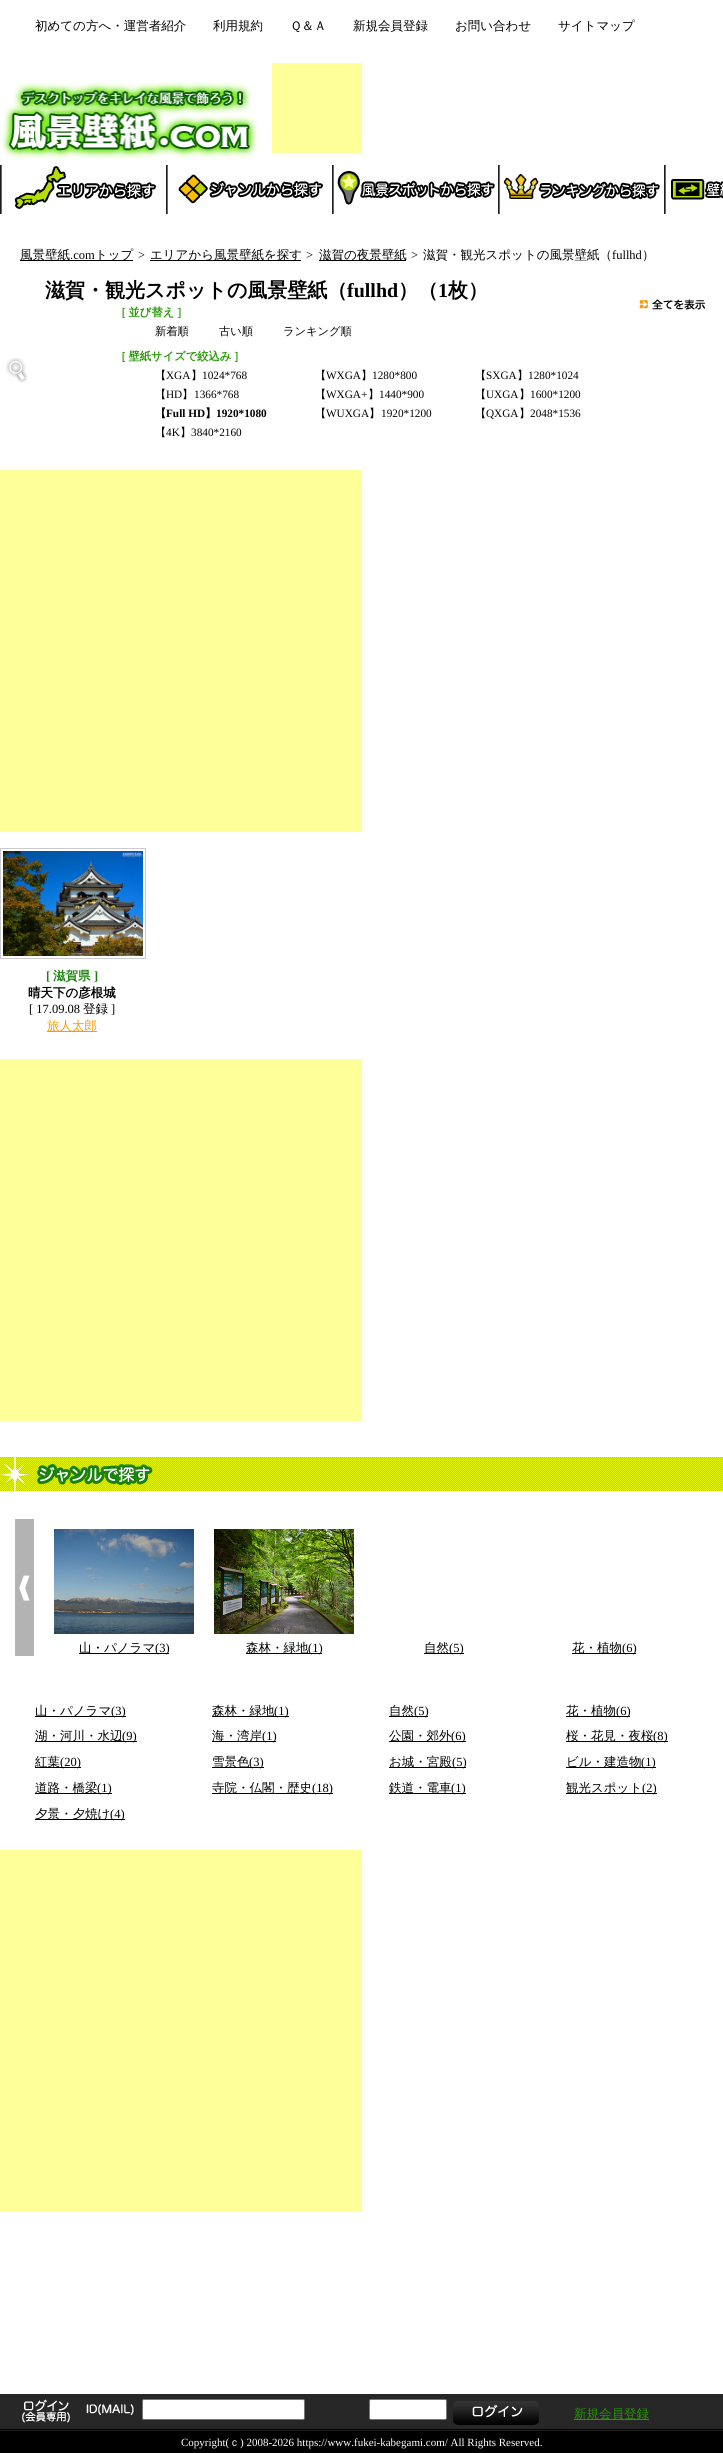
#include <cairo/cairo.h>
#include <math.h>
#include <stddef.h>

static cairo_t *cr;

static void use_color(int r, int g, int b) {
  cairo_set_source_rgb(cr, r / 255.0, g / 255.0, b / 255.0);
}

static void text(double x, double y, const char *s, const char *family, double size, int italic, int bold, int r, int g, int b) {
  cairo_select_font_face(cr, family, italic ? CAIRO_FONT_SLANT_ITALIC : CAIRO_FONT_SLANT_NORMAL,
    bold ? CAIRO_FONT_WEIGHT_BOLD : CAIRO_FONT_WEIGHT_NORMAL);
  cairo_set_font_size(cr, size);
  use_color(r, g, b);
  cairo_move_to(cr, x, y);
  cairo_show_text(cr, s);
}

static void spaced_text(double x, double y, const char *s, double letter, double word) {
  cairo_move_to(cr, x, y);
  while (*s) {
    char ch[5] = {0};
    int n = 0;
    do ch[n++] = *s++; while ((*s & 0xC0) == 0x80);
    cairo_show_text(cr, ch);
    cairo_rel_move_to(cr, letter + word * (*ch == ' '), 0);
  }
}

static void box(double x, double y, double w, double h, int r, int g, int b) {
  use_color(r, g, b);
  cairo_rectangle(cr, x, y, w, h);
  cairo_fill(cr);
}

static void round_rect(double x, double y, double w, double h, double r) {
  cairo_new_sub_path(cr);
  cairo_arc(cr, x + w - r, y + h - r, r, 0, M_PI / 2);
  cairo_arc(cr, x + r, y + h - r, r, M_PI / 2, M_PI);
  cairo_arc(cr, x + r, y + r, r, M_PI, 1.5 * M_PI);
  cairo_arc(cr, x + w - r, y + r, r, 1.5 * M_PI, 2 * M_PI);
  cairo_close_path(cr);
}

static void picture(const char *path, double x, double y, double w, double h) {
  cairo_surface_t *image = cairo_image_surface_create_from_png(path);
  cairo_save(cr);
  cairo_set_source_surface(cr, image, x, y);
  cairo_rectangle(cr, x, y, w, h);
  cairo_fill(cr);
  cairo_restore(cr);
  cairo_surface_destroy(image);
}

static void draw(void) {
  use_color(255, 255, 255);
  cairo_paint(cr);
  picture("img_01.png", 1, 81, 257, 78);
  box(272, 63, 90, 90, 255, 255, 153);
  picture("img_02.png", 0, 165, 157, 49);
  picture("img_03.png", 166, 165, 158, 49);
  picture("img_04.png", 332, 165, 163, 49);
  picture("img_05.png", 498, 165, 162, 49);
  picture("img_06.png", 664, 165, 59, 49);
  box(20, 260, 113, 1, 0, 0, 0);
  box(150, 260, 151, 1, 0, 0, 0);
  box(319, 260, 87, 1, 0, 0, 0);
  picture("img_07.png", 639, 299, 66, 11);
  picture("img_08.png", 6, 358, 22, 25);
  box(0, 470, 362, 362, 255, 255, 153);
  cairo_rectangle(cr, 0.5, 848.5, 145, 110);
  use_color(203, 203, 203);
  cairo_set_line_width(cr, 1);
  cairo_stroke(cr);
  picture("img_09.png", 3, 851, 140, 105);
  box(47, 1031, 50, 1, 253, 153, 1);
  box(0, 1059, 362, 362, 255, 255, 153);
  picture("img_10.png", 0, 1457, 723, 34);
  picture("img_11.png", 15, 1519, 19, 137);
  picture("img_12.png", 54, 1529, 140, 105);
  box(79, 1653, 90, 1, 0, 0, 0);
  picture("img_13.png", 214, 1529, 140, 105);
  box(246, 1653, 76, 1, 0, 0, 0);
  box(424, 1653, 40, 1, 0, 0, 0);
  box(572, 1653, 64, 1, 0, 0, 0);
  box(35, 1716, 91, 1, 0, 0, 0);
  box(212, 1716, 77, 1, 0, 0, 0);
  box(389, 1716, 39, 1, 0, 0, 0);
  box(566, 1716, 64, 1, 0, 0, 0);
  box(35, 1741, 102, 1, 0, 0, 0);
  box(212, 1741, 64, 1, 0, 0, 0);
  box(389, 1741, 77, 1, 0, 0, 0);
  box(566, 1741, 102, 1, 0, 0, 0);
  box(35, 1767, 46, 1, 0, 0, 0);
  box(212, 1767, 52, 1, 0, 0, 0);
  box(389, 1767, 77, 1, 0, 0, 0);
  box(566, 1767, 90, 1, 0, 0, 0);
  box(35, 1793, 77, 1, 0, 0, 0);
  box(212, 1793, 121, 1, 0, 0, 0);
  box(389, 1793, 77, 1, 0, 0, 0);
  box(566, 1793, 91, 1, 0, 0, 0);
  box(35, 1819, 90, 1, 0, 0, 0);
  box(0, 1850, 362, 362, 255, 255, 153);
  box(0, 2394, 723, 35, 39, 39, 39);
  box(0, 2429, 723, 1, 0, 0, 0);
  picture("img_14.png", 22, 2399, 48, 24);
  picture("img_15.png", 86, 2404, 48, 11);
  use_color(255, 255, 255);
  round_rect(142.5, 2399.5, 162, 20, 1.5);
  cairo_fill_preserve(cr);
  use_color(118, 118, 118);
  cairo_stroke(cr);
  use_color(255, 255, 255);
  round_rect(369.5, 2399.5, 77, 20, 1.5);
  cairo_fill_preserve(cr);
  use_color(118, 118, 118);
  cairo_stroke(cr);
  picture("img_16.png", 453, 2401, 86, 24);
  box(574, 2419, 75, 1, 36, 152, 0);
  box(0, 2431, 723, 22, 0, 0, 0);
  box(0, 2430, 723, 1, 35, 35, 35);
  text(35, 30, "初めての方へ・運営者紹介", "WenQuanYi Zen Hei Medium", 12.5, 0, 0, 0, 0, 0);
  text(213, 30, "利用規約", "WenQuanYi Zen Hei Medium", 12.5, 0, 0, 0, 0, 0);
  text(290, 30, "Ｑ＆Ａ", "WenQuanYi Zen Hei Medium", 12.5, 0, 0, 0, 0, 0);
  text(353, 30, "新規会員登録", "WenQuanYi Zen Hei Medium", 12.5, 0, 0, 0, 0, 0);
  text(455, 30, "お問い合わせ", "WenQuanYi Zen Hei Medium", 12.5, 0, 0, 0, 0, 0);
  text(558, 30, "サイトマップ", "WenQuanYi Zen Hei Medium", 12.5, 0, 0, 0, 0, 0);
  text(20, 259, "風景壁紙", "WenQuanYi Zen Hei Medium", 12.5, 0, 0, 0, 0, 0);
  text(70, 259, ".com", "Liberation Serif", 12.5, 0, 0, 0, 0, 0);
  text(95, 259, "トップ", "WenQuanYi Zen Hei Medium", 12.5, 0, 0, 0, 0, 0);
  text(138, 259, ">", "Liberation Serif", 12.5, 0, 0, 0, 0, 0);
  text(150, 259, "エリアから風景壁紙を探す", "WenQuanYi Zen Hei Medium", 12.5, 0, 0, 0, 0, 0);
  text(306, 259, ">", "Liberation Serif", 12.5, 0, 0, 0, 0, 0);
  text(319, 259, "滋賀の夜景壁紙", "WenQuanYi Zen Hei Medium", 12.5, 0, 0, 0, 0, 0);
  text(411, 259, ">", "Liberation Serif", 12.5, 0, 0, 0, 0, 0);
  text(423, 259, "滋賀・観光スポットの風景壁紙（", "WenQuanYi Zen Hei Medium", 12.5, 0, 0, 0, 0, 0);
  text(612, 259, "fullhd", "Liberation Serif", 12.5, 0, 0, 0, 0, 0);
  text(642, 259, "）", "WenQuanYi Zen Hei Medium", 12.5, 0, 0, 0, 0, 0);
  text(45, 297, "滋賀・観光スポットの風景壁紙（", "WenQuanYi Zen Hei", 20, 0, 1, 0, 0, 0);
  text(347, 297, "fullhd", "Liberation Serif", 20, 0, 1, 0, 0, 0);
  text(398, 297, "）（", "WenQuanYi Zen Hei", 20, 0, 1, 0, 0, 0);
  text(438, 297, "1", "Liberation Serif", 20, 0, 1, 0, 0, 0);
  text(448, 297, "枚）", "WenQuanYi Zen Hei", 20, 0, 1, 0, 0, 0);
  cairo_set_font_size(cr, 11.25);
  use_color(36, 152, 0);
  spaced_text(115, 316, "［ 並び替え ］", 0, -1);
  text(155, 335, "新着順", "WenQuanYi Zen Hei Medium", 11.25, 0, 0, 0, 0, 0);
  text(219, 335, "古い順", "WenQuanYi Zen Hei Medium", 11.25, 0, 0, 0, 0, 0);
  text(283, 335, "ランキング順", "WenQuanYi Zen Hei Medium", 11.25, 0, 0, 0, 0, 0);
  cairo_select_font_face(cr, "WenQuanYi Zen Hei", CAIRO_FONT_SLANT_NORMAL, CAIRO_FONT_WEIGHT_BOLD);
  use_color(36, 152, 0);
  spaced_text(115, 360, "［ 壁紙サイズで絞込み ］", 0, -1);
  text(155, 379, "【", "WenQuanYi Zen Hei Medium", 11.25, 0, 0, 0, 0, 0);
  text(166, 379, "XGA", "Liberation Serif", 11.25, 0, 0, 0, 0, 0);
  text(191, 379, "】", "WenQuanYi Zen Hei Medium", 11.25, 0, 0, 0, 0, 0);
  text(202, 379, "1024*768", "Liberation Serif", 11.25, 0, 0, 0, 0, 0);
  text(315, 379, "【", "WenQuanYi Zen Hei Medium", 11.25, 0, 0, 0, 0, 0);
  text(326, 379, "WXGA", "Liberation Serif", 11.25, 0, 0, 0, 0, 0);
  text(361, 379, "】", "WenQuanYi Zen Hei Medium", 11.25, 0, 0, 0, 0, 0);
  text(372, 379, "1280*800", "Liberation Serif", 11.25, 0, 0, 0, 0, 0);
  text(475, 379, "【", "WenQuanYi Zen Hei Medium", 11.25, 0, 0, 0, 0, 0);
  text(486, 379, "SXGA", "Liberation Serif", 11.25, 0, 0, 0, 0, 0);
  text(517, 379, "】", "WenQuanYi Zen Hei Medium", 11.25, 0, 0, 0, 0, 0);
  text(528, 379, "1280*1024", "Liberation Serif", 11.25, 0, 0, 0, 0, 0);
  text(155, 398, "【", "WenQuanYi Zen Hei Medium", 11.25, 0, 0, 0, 0, 0);
  text(166, 398, "HD", "Liberation Serif", 11.25, 0, 0, 0, 0, 0);
  text(182, 398, "】", "WenQuanYi Zen Hei Medium", 11.25, 0, 0, 0, 0, 0);
  text(194, 398, "1366*768", "Liberation Serif", 11.25, 0, 0, 0, 0, 0);
  text(315, 398, "【", "WenQuanYi Zen Hei Medium", 11.25, 0, 0, 0, 0, 0);
  text(326, 398, "WXGA+", "Liberation Serif", 11.25, 0, 0, 0, 0, 0);
  text(368, 398, "】", "WenQuanYi Zen Hei Medium", 11.25, 0, 0, 0, 0, 0);
  text(379, 398, "1440*900", "Liberation Serif", 11.25, 0, 0, 0, 0, 0);
  text(475, 398, "【", "WenQuanYi Zen Hei Medium", 11.25, 0, 0, 0, 0, 0);
  text(486, 398, "UXGA", "Liberation Serif", 11.25, 0, 0, 0, 0, 0);
  text(519, 398, "】", "WenQuanYi Zen Hei Medium", 11.25, 0, 0, 0, 0, 0);
  text(530, 398, "1600*1200", "Liberation Serif", 11.25, 0, 0, 0, 0, 0);
  text(155, 417, "【", "WenQuanYi Zen Hei", 11.25, 0, 1, 0, 0, 0);
  text(166, 417, "Full HD", "Liberation Serif", 11.25, 0, 1, 0, 0, 0);
  text(205, 417, "】", "WenQuanYi Zen Hei", 11.25, 0, 1, 0, 0, 0);
  text(216, 417, "1920*1080", "Liberation Serif", 11.25, 0, 1, 0, 0, 0);
  text(315, 417, "【", "WenQuanYi Zen Hei Medium", 11.25, 0, 0, 0, 0, 0);
  text(326, 417, "WUXGA", "Liberation Serif", 11.25, 0, 0, 0, 0, 0);
  text(369, 417, "】", "WenQuanYi Zen Hei Medium", 11.25, 0, 0, 0, 0, 0);
  text(381, 417, "1920*1200", "Liberation Serif", 11.25, 0, 0, 0, 0, 0);
  text(475, 417, "【", "WenQuanYi Zen Hei Medium", 11.25, 0, 0, 0, 0, 0);
  text(486, 417, "QXGA", "Liberation Serif", 11.25, 0, 0, 0, 0, 0);
  text(519, 417, "】", "WenQuanYi Zen Hei Medium", 11.25, 0, 0, 0, 0, 0);
  text(530, 417, "2048*1536", "Liberation Serif", 11.25, 0, 0, 0, 0, 0);
  text(155, 436, "【", "WenQuanYi Zen Hei Medium", 11.25, 0, 0, 0, 0, 0);
  text(166, 436, "4K", "Liberation Serif", 11.25, 0, 0, 0, 0, 0);
  text(180, 436, "】", "WenQuanYi Zen Hei Medium", 11.25, 0, 0, 0, 0, 0);
  text(191, 436, "3840*2160", "Liberation Serif", 11.25, 0, 0, 0, 0, 0);
  text(46, 980, "[", "Liberation Serif", 12.5, 0, 1, 26, 129, 13);
  text(53, 980, "滋賀県", "WenQuanYi Zen Hei", 12.5, 0, 1, 26, 129, 13);
  text(94, 980, "]", "Liberation Serif", 12.5, 0, 1, 26, 129, 13);
  text(28, 997, "晴天下の彦根城", "WenQuanYi Zen Hei", 12.5, 0, 1, 0, 0, 0);
  text(29, 1013, "[ 17.09.08", "Liberation Serif", 12.5, 0, 0, 0, 0, 0);
  text(83, 1013, "登録", "WenQuanYi Zen Hei Medium", 12.5, 0, 0, 0, 0, 0);
  text(111, 1013, "]", "Liberation Serif", 12.5, 0, 0, 0, 0, 0);
  text(47, 1030, "旅人太郎", "WenQuanYi Zen Hei Medium", 12.5, 0, 0, 253, 153, 1);
  text(79, 1652, "山・パノラマ", "WenQuanYi Zen Hei Medium", 12.5, 0, 0, 0, 0, 0);
  text(155, 1652, "(3)", "Liberation Serif", 12.5, 0, 0, 0, 0, 0);
  text(246, 1652, "森林・緑地", "WenQuanYi Zen Hei Medium", 12.5, 0, 0, 0, 0, 0);
  text(308, 1652, "(1)", "Liberation Serif", 12.5, 0, 0, 0, 0, 0);
  text(424, 1652, "自然", "WenQuanYi Zen Hei Medium", 12.5, 0, 0, 0, 0, 0);
  text(449, 1652, "(5)", "Liberation Serif", 12.5, 0, 0, 0, 0, 0);
  text(572, 1652, "花・植物", "WenQuanYi Zen Hei Medium", 12.5, 0, 0, 0, 0, 0);
  text(622, 1652, "(6)", "Liberation Serif", 12.5, 0, 0, 0, 0, 0);
  text(35, 1715, "山・パノラマ", "WenQuanYi Zen Hei Medium", 12.5, 0, 0, 0, 0, 0);
  text(111, 1715, "(3)", "Liberation Serif", 12.5, 0, 0, 0, 0, 0);
  text(212, 1715, "森林・緑地", "WenQuanYi Zen Hei Medium", 12.5, 0, 0, 0, 0, 0);
  text(274, 1715, "(1)", "Liberation Serif", 12.5, 0, 0, 0, 0, 0);
  text(389, 1715, "自然", "WenQuanYi Zen Hei Medium", 12.5, 0, 0, 0, 0, 0);
  text(414, 1715, "(5)", "Liberation Serif", 12.5, 0, 0, 0, 0, 0);
  text(566, 1715, "花・植物", "WenQuanYi Zen Hei Medium", 12.5, 0, 0, 0, 0, 0);
  text(616, 1715, "(6)", "Liberation Serif", 12.5, 0, 0, 0, 0, 0);
  text(35, 1740, "湖・河川・水辺", "WenQuanYi Zen Hei Medium", 12.5, 0, 0, 0, 0, 0);
  text(122, 1740, "(9)", "Liberation Serif", 12.5, 0, 0, 0, 0, 0);
  text(212, 1740, "海・湾岸", "WenQuanYi Zen Hei Medium", 12.5, 0, 0, 0, 0, 0);
  text(262, 1740, "(1)", "Liberation Serif", 12.5, 0, 0, 0, 0, 0);
  text(389, 1740, "公園・郊外", "WenQuanYi Zen Hei Medium", 12.5, 0, 0, 0, 0, 0);
  text(451, 1740, "(6)", "Liberation Serif", 12.5, 0, 0, 0, 0, 0);
  text(566, 1740, "桜・花見・夜桜", "WenQuanYi Zen Hei Medium", 12.5, 0, 0, 0, 0, 0);
  text(653, 1740, "(8)", "Liberation Serif", 12.5, 0, 0, 0, 0, 0);
  text(35, 1766, "紅葉", "WenQuanYi Zen Hei Medium", 12.5, 0, 0, 0, 0, 0);
  text(60, 1766, "(20)", "Liberation Serif", 12.5, 0, 0, 0, 0, 0);
  text(212, 1766, "雪景色", "WenQuanYi Zen Hei Medium", 12.5, 0, 0, 0, 0, 0);
  text(249, 1766, "(3)", "Liberation Serif", 12.5, 0, 0, 0, 0, 0);
  text(389, 1766, "お城・宮殿", "WenQuanYi Zen Hei Medium", 12.5, 0, 0, 0, 0, 0);
  text(452, 1766, "(5)", "Liberation Serif", 12.5, 0, 0, 0, 0, 0);
  text(566, 1766, "ビル・建造物", "WenQuanYi Zen Hei Medium", 12.5, 0, 0, 0, 0, 0);
  text(641, 1766, "(1)", "Liberation Serif", 12.5, 0, 0, 0, 0, 0);
  text(35, 1792, "道路・橋梁", "WenQuanYi Zen Hei Medium", 12.5, 0, 0, 0, 0, 0);
  text(97, 1792, "(1)", "Liberation Serif", 12.5, 0, 0, 0, 0, 0);
  text(212, 1792, "寺院・仏閣・歴史", "WenQuanYi Zen Hei Medium", 12.5, 0, 0, 0, 0, 0);
  text(312, 1792, "(18)", "Liberation Serif", 12.5, 0, 0, 0, 0, 0);
  text(389, 1792, "鉄道・電車", "WenQuanYi Zen Hei Medium", 12.5, 0, 0, 0, 0, 0);
  text(451, 1792, "(1)", "Liberation Serif", 12.5, 0, 0, 0, 0, 0);
  text(566, 1792, "観光スポット", "WenQuanYi Zen Hei Medium", 12.5, 0, 0, 0, 0, 0);
  text(642, 1792, "(2)", "Liberation Serif", 12.5, 0, 0, 0, 0, 0);
  text(35, 1818, "夕景・夕焼け", "WenQuanYi Zen Hei Medium", 12.5, 0, 0, 0, 0, 0);
  text(110, 1818, "(4)", "Liberation Serif", 12.5, 0, 0, 0, 0, 0);
  text(574, 2418, "新規会員登録", "WenQuanYi Zen Hei Medium", 12.5, 0, 0, 36, 152, 0);
  text(181, 2446, "Copyright(", "Liberation Serif", 11, 0, 0, 255, 255, 255);
  text(229, 2446, "ｃ", "WenQuanYi Zen Hei Medium", 11, 0, 0, 255, 255, 255);
  text(240, 2446, ") 2008-2026 https://www.fukei-kabegami.com/ All Rights Reserved.", "Liberation Serif", 11, 0, 0, 255, 255, 255);
}

int main(void) {
  cairo_surface_t *surface = cairo_image_surface_create(CAIRO_FORMAT_RGB24, 723, 2453);
  cr = cairo_create(surface);
  cairo_font_options_t *options = cairo_font_options_create();
  cairo_font_options_set_hint_metrics(options, CAIRO_HINT_METRICS_OFF);
  cairo_font_options_set_hint_style(options, CAIRO_HINT_STYLE_NONE);
  cairo_set_font_options(cr, options);
  cairo_set_miter_limit(cr, 4);
  draw();
  cairo_surface_write_to_png(surface, "out.png");
  cairo_font_options_destroy(options);
  cairo_destroy(cr);
  cairo_surface_destroy(surface);
  return 0;
}
